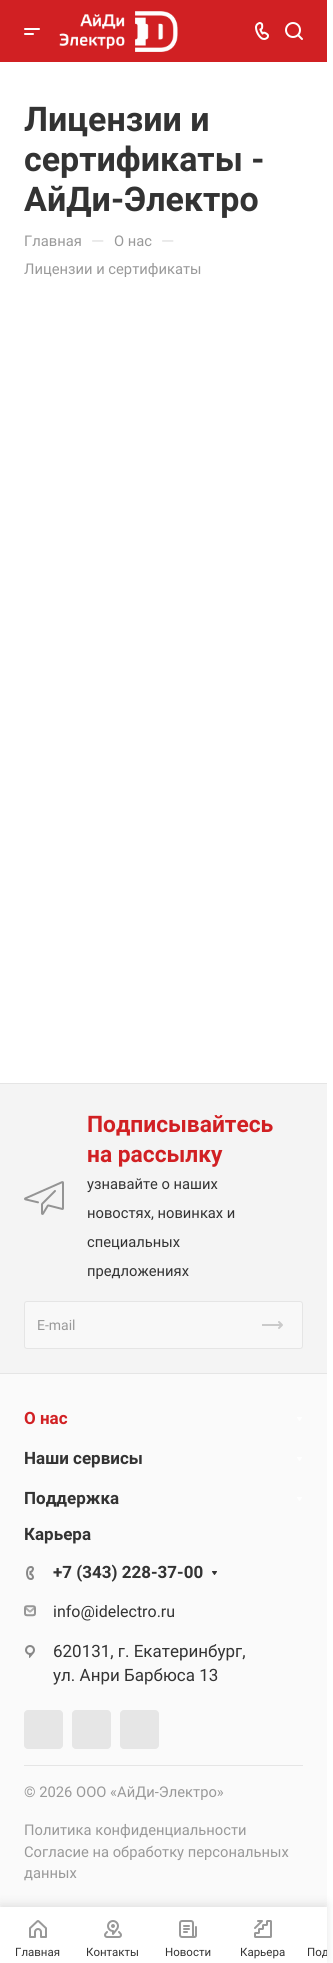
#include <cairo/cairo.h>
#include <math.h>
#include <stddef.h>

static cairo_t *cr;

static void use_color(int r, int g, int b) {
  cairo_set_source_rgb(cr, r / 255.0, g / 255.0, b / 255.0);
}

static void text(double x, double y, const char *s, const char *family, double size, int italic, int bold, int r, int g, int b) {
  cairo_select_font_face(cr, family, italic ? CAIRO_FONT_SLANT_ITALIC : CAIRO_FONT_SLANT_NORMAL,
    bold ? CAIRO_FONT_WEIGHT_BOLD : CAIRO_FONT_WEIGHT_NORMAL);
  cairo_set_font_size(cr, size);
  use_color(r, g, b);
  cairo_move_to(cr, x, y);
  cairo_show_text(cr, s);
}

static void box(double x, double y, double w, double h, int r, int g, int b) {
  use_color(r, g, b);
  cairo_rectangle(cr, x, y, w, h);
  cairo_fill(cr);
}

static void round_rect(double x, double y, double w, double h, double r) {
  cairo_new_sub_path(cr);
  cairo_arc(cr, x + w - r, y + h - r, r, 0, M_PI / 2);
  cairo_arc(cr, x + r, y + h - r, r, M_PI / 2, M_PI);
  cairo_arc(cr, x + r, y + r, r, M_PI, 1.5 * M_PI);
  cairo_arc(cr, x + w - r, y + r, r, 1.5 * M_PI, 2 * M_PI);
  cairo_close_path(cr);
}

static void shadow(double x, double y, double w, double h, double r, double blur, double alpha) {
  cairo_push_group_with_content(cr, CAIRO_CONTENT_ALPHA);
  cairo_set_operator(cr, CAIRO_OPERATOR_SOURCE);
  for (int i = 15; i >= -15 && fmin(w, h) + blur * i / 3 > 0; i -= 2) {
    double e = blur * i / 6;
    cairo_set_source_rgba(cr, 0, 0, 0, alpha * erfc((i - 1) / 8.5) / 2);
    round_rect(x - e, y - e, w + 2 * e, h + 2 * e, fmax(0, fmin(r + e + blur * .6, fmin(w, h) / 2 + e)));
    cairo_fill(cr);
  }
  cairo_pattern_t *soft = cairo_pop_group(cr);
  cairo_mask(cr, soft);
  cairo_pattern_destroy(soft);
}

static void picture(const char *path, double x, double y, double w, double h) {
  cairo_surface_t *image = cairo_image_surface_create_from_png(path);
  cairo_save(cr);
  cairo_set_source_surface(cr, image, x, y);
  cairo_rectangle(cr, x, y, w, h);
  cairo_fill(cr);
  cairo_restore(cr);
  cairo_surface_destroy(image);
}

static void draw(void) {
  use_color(255, 255, 255);
  cairo_paint(cr);
  box(0, 0, 327, 62, 209, 32, 35);
  picture("img_01.png", 24, 28, 16, 7);
  picture("img_02.png", 59, 11, 119, 41);
  picture("img_03.png", 255, 22, 14, 18);
  picture("img_04.png", 285, 22, 18, 18);
  box(0, 1374, 327, 533, 250, 250, 250);
  box(0, 1083, 327, 1, 229, 229, 229);
  box(0, 1084, 327, 289, 244, 244, 244);
  box(0, 1373, 327, 1, 229, 229, 229);
  picture("img_05.png", 24, 1181, 40, 34);
  use_color(248, 248, 248);
  round_rect(24.5, 1301.5, 278, 47, 2.5);
  cairo_fill_preserve(cr);
  use_color(229, 229, 229);
  cairo_set_line_width(cr, 1);
  cairo_stroke(cr);
  cairo_new_path(cr);
  cairo_move_to(cr, 279, 1322);
  cairo_line_to(cr, 282, 1325);
  cairo_line_to(cr, 279, 1328);
  use_color(202, 202, 202);
  cairo_set_line_width(cr, 2);
  cairo_set_line_cap(cr, CAIRO_LINE_CAP_ROUND);
  cairo_set_line_join(cr, CAIRO_LINE_JOIN_ROUND);
  cairo_stroke(cr);
  box(262, 1324, 19, 2, 202, 202, 202);
  picture("img_06.png", 297, 1417, 5, 4);
  picture("img_06.png", 297, 1457, 5, 4);
  picture("img_06.png", 297, 1497, 5, 4);
  picture("img_07.png", 26, 1566, 8, 14);
  picture("img_08.png", 212, 1571, 5, 4);
  picture("img_09.png", 24, 1605, 12, 12);
  picture("img_10.png", 25, 1645, 10, 13);
  use_color(230, 230, 230);
  round_rect(24, 1710, 39, 39, 4);
  cairo_fill(cr);
  round_rect(72, 1710, 39, 39, 4);
  cairo_fill(cr);
  round_rect(120, 1710, 39, 39, 4);
  cairo_fill(cr);
  box(24, 1765, 279, 1, 229, 229, 229);
  use_color(0, 0, 0);
  shadow(0, 1904, 327, 56, 0, 5, 0.1);
  box(0, 1907, 327, 56, 255, 255, 255);
  picture("img_11.png", 29, 1920, 18, 18);
  picture("img_12.png", 104, 1920, 18, 18);
  picture("img_13.png", 179, 1920, 18, 18);
  picture("img_14.png", 254, 1920, 18, 18);
  text(24, 131, "Лицензии и", "Roboto", 34, 0, 1, 51, 51, 51);
  text(24, 171, "сертификаты -", "Roboto", 34, 0, 1, 51, 51, 51);
  text(24, 211, "АйДи-Электро", "Roboto", 34, 0, 1, 51, 51, 51);
  text(24, 246, "Главная", "Roboto", 14.75, 0, 0, 153, 153, 153);
  text(91, 247, "—", "Roboto", 17, 0, 0, 221, 221, 221);
  text(114, 246, "О нас", "Roboto", 14.75, 0, 0, 153, 153, 153);
  text(161, 247, "—", "Roboto", 17, 0, 0, 221, 221, 221);
  text(24, 274, "Лицензии и сертификаты", "Roboto", 14.75, 0, 0, 153, 153, 153);
  text(87, 1132, "Подписывайтесь", "Roboto", 22.75, 0, 1, 209, 32, 35);
  text(87, 1162, "на рассылку", "Roboto", 22.75, 0, 1, 209, 32, 35);
  text(87, 1189, "узнавайте о наших", "Roboto", 14.75, 0, 0, 51, 51, 51);
  text(87, 1218, "новостях, новинках и", "Roboto", 14.75, 0, 0, 51, 51, 51);
  text(87, 1247, "специальных", "Roboto", 14.75, 0, 0, 51, 51, 51);
  text(87, 1276, "предложениях", "Roboto", 14.75, 0, 0, 51, 51, 51);
  text(37, 1330, "E-mail", "Roboto", 14, 0, 0, 153, 153, 153);
  text(24, 1424, "О нас", "Roboto", 17, 0, 1, 209, 32, 35);
  text(24, 1464, "Наши сервисы", "Roboto", 17, 0, 1, 51, 51, 51);
  text(24, 1504, "Поддержка", "Roboto", 17, 0, 1, 51, 51, 51);
  text(24, 1540, "Карьера", "Roboto", 17, 0, 1, 51, 51, 51);
  text(53, 1578, "+7 (343) 228-37-00", "Roboto", 17, 0, 1, 51, 51, 51);
  text(53, 1617, "info@idelectro.ru", "Roboto", 16, 0, 0, 51, 51, 51);
  text(53, 1657, "620131, г. Екатеринбург,", "Roboto", 17, 0, 0, 51, 51, 51);
  text(53, 1681, "ул. Анри Барбюса 13", "Roboto", 17, 0, 0, 51, 51, 51);
  text(24, 1797, "© 2026 ООО «АйДи-Электро»", "Roboto", 14.75, 0, 0, 153, 153, 153);
  text(24, 1835, "Политика конфиденциальности", "Roboto", 14.75, 0, 0, 153, 153, 153);
  text(24, 1857, "Согласие на обработку персональных", "Roboto", 14.75, 0, 0, 153, 153, 153);
  text(24, 1878, "данных", "Roboto", 14.75, 0, 0, 153, 153, 153);
  text(15, 1956, "Главная", "Roboto", 11.5, 0, 0, 51, 51, 51);
  text(86, 1956, "Контакты", "Roboto", 11.5, 0, 0, 51, 51, 51);
  text(165, 1956, "Новости", "Roboto", 11.5, 0, 0, 51, 51, 51);
  text(240, 1956, "Карьера", "Roboto", 11.5, 0, 0, 51, 51, 51);
  cairo_save(cr);
  cairo_rectangle(cr, 303, 1943, 24, 18);
  cairo_clip(cr);
  text(307, 1956, "Под", "Roboto", 11.5, 0, 0, 51, 51, 51);
  cairo_restore(cr);
}

int main(void) {
  cairo_surface_t *surface = cairo_image_surface_create(CAIRO_FORMAT_RGB24, 333, 1963);
  cr = cairo_create(surface);
  cairo_font_options_t *options = cairo_font_options_create();
  cairo_font_options_set_hint_metrics(options, CAIRO_HINT_METRICS_OFF);
  cairo_font_options_set_hint_style(options, CAIRO_HINT_STYLE_NONE);
  cairo_set_font_options(cr, options);
  cairo_set_miter_limit(cr, 4);
  draw();
  cairo_surface_write_to_png(surface, "out.png");
  cairo_font_options_destroy(options);
  cairo_destroy(cr);
  cairo_surface_destroy(surface);
  return 0;
}
